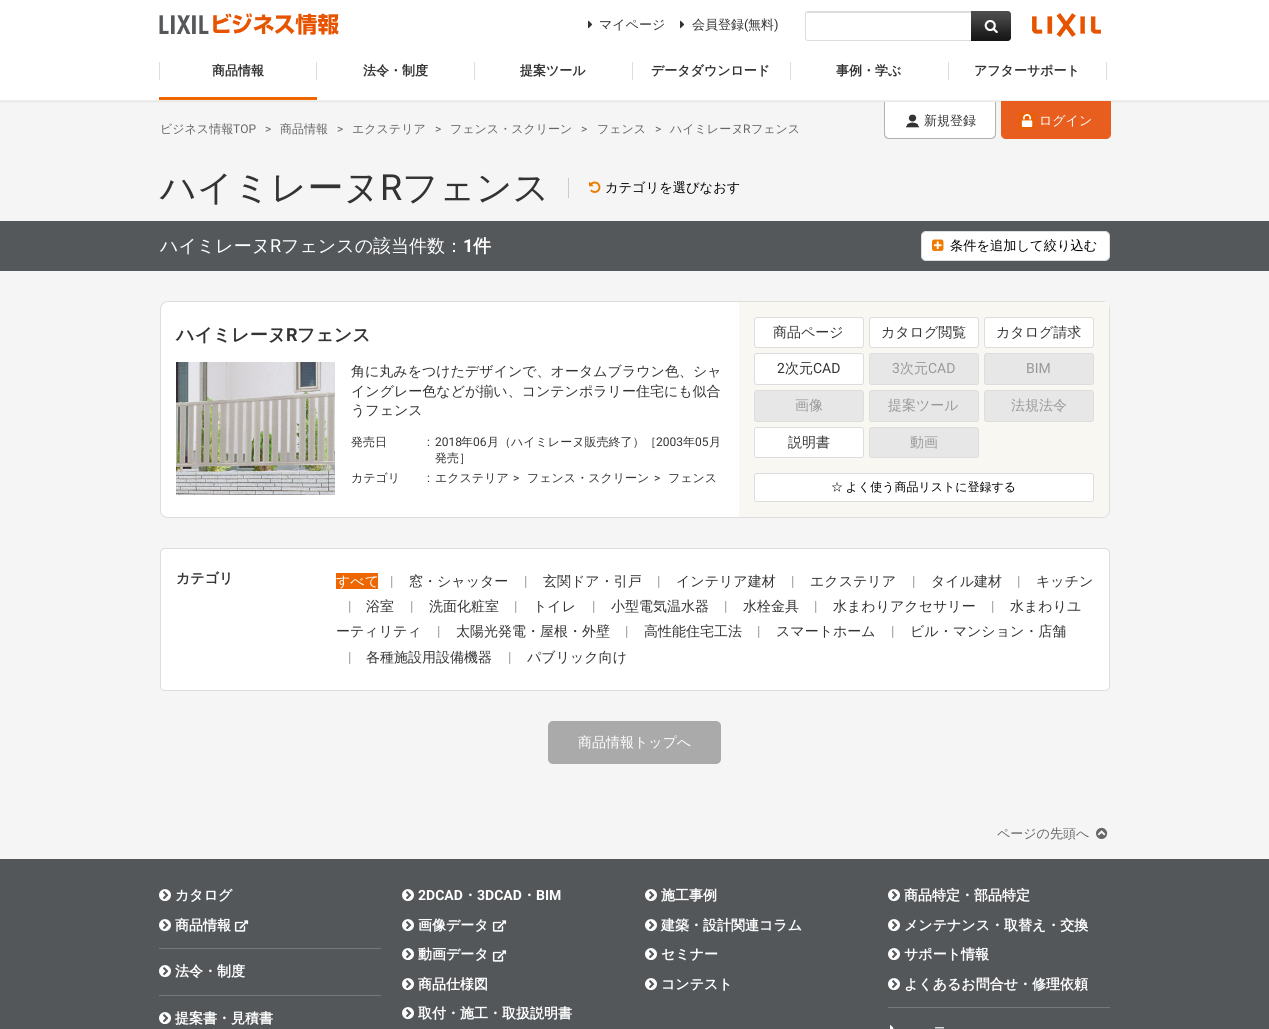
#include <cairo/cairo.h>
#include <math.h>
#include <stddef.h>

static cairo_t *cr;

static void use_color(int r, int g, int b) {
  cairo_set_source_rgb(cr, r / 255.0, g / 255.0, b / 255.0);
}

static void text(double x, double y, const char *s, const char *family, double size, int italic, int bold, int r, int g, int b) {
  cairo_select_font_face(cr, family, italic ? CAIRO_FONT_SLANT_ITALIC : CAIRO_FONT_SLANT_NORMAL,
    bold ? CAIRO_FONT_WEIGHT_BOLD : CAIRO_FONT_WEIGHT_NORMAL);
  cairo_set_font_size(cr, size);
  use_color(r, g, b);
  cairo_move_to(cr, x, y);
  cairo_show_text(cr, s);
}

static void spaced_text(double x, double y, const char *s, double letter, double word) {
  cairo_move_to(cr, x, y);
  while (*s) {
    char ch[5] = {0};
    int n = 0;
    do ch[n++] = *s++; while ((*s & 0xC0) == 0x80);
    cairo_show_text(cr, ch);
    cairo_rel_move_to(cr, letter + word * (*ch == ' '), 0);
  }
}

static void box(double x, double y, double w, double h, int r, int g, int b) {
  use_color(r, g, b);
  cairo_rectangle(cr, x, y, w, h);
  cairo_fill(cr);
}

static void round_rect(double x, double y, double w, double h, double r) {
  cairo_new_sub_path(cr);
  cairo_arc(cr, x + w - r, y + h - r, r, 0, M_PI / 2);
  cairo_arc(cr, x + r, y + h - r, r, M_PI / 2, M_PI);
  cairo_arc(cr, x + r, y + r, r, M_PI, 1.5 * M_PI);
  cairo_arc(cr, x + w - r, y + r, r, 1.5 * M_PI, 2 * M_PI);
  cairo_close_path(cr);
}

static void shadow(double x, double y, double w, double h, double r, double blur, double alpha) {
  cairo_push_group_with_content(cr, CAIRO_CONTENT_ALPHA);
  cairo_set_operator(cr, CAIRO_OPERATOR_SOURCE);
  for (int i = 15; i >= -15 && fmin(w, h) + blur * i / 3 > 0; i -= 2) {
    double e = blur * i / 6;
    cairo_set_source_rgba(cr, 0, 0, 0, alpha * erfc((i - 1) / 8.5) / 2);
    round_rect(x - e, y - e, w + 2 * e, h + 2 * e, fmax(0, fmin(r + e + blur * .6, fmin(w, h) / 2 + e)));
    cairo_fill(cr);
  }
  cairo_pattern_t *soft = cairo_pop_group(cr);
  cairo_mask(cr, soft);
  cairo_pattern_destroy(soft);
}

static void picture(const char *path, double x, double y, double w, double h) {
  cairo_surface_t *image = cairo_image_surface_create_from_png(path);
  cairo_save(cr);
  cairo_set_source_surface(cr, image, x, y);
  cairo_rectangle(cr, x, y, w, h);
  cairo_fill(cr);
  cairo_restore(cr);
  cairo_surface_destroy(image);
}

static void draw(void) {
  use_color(245, 245, 245);
  cairo_paint(cr);
  use_color(0, 0, 0);
  shadow(0, -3, 1269, 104, 0, 1, 0.15);
  box(0, 0, 1269, 100, 255, 255, 255);
  picture("img_01.png", 159, 13, 180, 22);
  picture("img_02.png", 588, 20, 5, 9);
  picture("img_02.png", 680, 20, 5, 9);
  round_rect(805.5, 11.5, 205, 29, 2.5);
  use_color(221, 221, 221);
  cairo_set_line_width(cr, 1);
  cairo_stroke(cr);
  box(807, 12, 164, 1, 221, 221, 221);
  picture("img_03.png", 971, 11, 40, 30);
  picture("img_04.png", 1032, 13, 69, 24);
  box(159, 97, 158, 3, 237, 102, 0);
  box(316, 62, 1, 18, 221, 221, 221);
  box(159, 62, 1, 18, 221, 221, 221);
  box(474, 62, 1, 18, 221, 221, 221);
  box(632, 62, 1, 18, 221, 221, 221);
  box(790, 62, 1, 18, 221, 221, 221);
  box(948, 62, 1, 18, 221, 221, 221);
  box(1106, 62, 1, 18, 221, 221, 221);
  box(0, 100, 1269, 1, 238, 238, 238);
  use_color(255, 255, 255);
  cairo_new_path(cr);
  cairo_move_to(cr, 884, 102);
  cairo_line_to(cr, 996, 102);
  cairo_line_to(cr, 996, 134);
  cairo_curve_to(cr, 996, 137, 994, 139, 991, 139);
  cairo_line_to(cr, 889, 139);
  cairo_curve_to(cr, 886, 139, 884, 137, 884, 134);
  cairo_close_path(cr);
  cairo_fill(cr);
  use_color(177, 177, 177);
  cairo_set_fill_rule(cr, CAIRO_FILL_RULE_EVEN_ODD);
  cairo_new_path(cr);
  cairo_move_to(cr, 884, 102);
  cairo_line_to(cr, 996, 102);
  cairo_line_to(cr, 996, 134);
  cairo_curve_to(cr, 996, 137, 994, 139, 991, 139);
  cairo_line_to(cr, 889, 139);
  cairo_curve_to(cr, 886, 139, 884, 137, 884, 134);
  cairo_close_path(cr);
  cairo_move_to(cr, 885, 102);
  cairo_line_to(cr, 995, 102);
  cairo_line_to(cr, 995, 134);
  cairo_curve_to(cr, 995, 136, 993, 138, 991, 138);
  cairo_line_to(cr, 889, 138);
  cairo_curve_to(cr, 887, 138, 885, 136, 885, 134);
  cairo_close_path(cr);
  cairo_fill(cr);
  picture("img_05.png", 905, 114, 15, 14);
  use_color(232, 94, 30);
  cairo_new_path(cr);
  cairo_move_to(cr, 1001, 101);
  cairo_line_to(cr, 1111, 101);
  cairo_line_to(cr, 1111, 134);
  cairo_curve_to(cr, 1111, 137, 1109, 139, 1106, 139);
  cairo_line_to(cr, 1006, 139);
  cairo_curve_to(cr, 1003, 139, 1001, 137, 1001, 134);
  cairo_close_path(cr);
  cairo_fill(cr);
  picture("img_06.png", 1019, 113, 16, 16);
  box(568, 178, 1, 20, 204, 204, 204);
  picture("img_07.png", 589, 181, 12, 12);
  box(0, 221, 1269, 50, 84, 88, 90);
  use_color(255, 255, 255);
  round_rect(921.5, 231.5, 188, 29, 4.5);
  cairo_fill_preserve(cr);
  use_color(221, 221, 221);
  cairo_stroke(cr);
  picture("img_08.png", 932, 239, 12, 12);
  use_color(255, 255, 255);
  round_rect(160.5, 301.5, 949, 216, 7.5);
  cairo_fill_preserve(cr);
  use_color(221, 221, 221);
  cairo_stroke(cr);
  picture("img_09.png", 176, 362, 159, 133);
  use_color(249, 247, 241);
  cairo_new_path(cr);
  cairo_move_to(cr, 739, 302);
  cairo_line_to(cr, 1109, 302);
  cairo_line_to(cr, 1109, 509);
  cairo_curve_to(cr, 1109, 513.5, 1105.5, 517, 1101, 517);
  cairo_line_to(cr, 739, 517);
  cairo_close_path(cr);
  cairo_fill(cr);
  use_color(255, 255, 255);
  round_rect(754.5, 317.5, 109, 30, 2.5);
  cairo_fill_preserve(cr);
  use_color(221, 221, 221);
  cairo_stroke(cr);
  use_color(255, 255, 255);
  round_rect(869.5, 317.5, 109, 30, 2.5);
  cairo_fill_preserve(cr);
  use_color(221, 221, 221);
  cairo_stroke(cr);
  use_color(255, 255, 255);
  round_rect(984.5, 317.5, 109, 30, 2.5);
  cairo_fill_preserve(cr);
  use_color(221, 221, 221);
  cairo_stroke(cr);
  use_color(255, 255, 255);
  round_rect(754.5, 353.5, 109, 31, 2.5);
  cairo_fill_preserve(cr);
  use_color(221, 221, 221);
  cairo_stroke(cr);
  use_color(231, 231, 231);
  round_rect(869.5, 353.5, 109, 31, 2.5);
  cairo_fill_preserve(cr);
  use_color(221, 221, 221);
  cairo_stroke(cr);
  use_color(231, 231, 231);
  round_rect(984.5, 353.5, 109, 31, 2.5);
  cairo_fill_preserve(cr);
  use_color(221, 221, 221);
  cairo_stroke(cr);
  use_color(231, 231, 231);
  round_rect(754.5, 390.5, 109, 31, 2.5);
  cairo_fill_preserve(cr);
  use_color(221, 221, 221);
  cairo_stroke(cr);
  use_color(231, 231, 231);
  round_rect(869.5, 390.5, 109, 31, 2.5);
  cairo_fill_preserve(cr);
  use_color(221, 221, 221);
  cairo_stroke(cr);
  use_color(231, 231, 231);
  round_rect(984.5, 390.5, 109, 31, 2.5);
  cairo_fill_preserve(cr);
  use_color(221, 221, 221);
  cairo_stroke(cr);
  use_color(255, 255, 255);
  round_rect(754.5, 427.5, 109, 30, 2.5);
  cairo_fill_preserve(cr);
  use_color(221, 221, 221);
  cairo_stroke(cr);
  use_color(231, 231, 231);
  round_rect(869.5, 427.5, 109, 30, 2.5);
  cairo_fill_preserve(cr);
  use_color(221, 221, 221);
  cairo_stroke(cr);
  use_color(255, 255, 255);
  round_rect(754.5, 473.5, 339, 28, 2.5);
  cairo_fill_preserve(cr);
  use_color(221, 221, 221);
  cairo_stroke(cr);
  use_color(255, 255, 255);
  round_rect(160.5, 548.5, 949, 142, 4.5);
  cairo_fill_preserve(cr);
  use_color(221, 221, 221);
  cairo_stroke(cr);
  box(336, 573, 42, 16, 237, 102, 0);
  use_color(170, 170, 170);
  round_rect(548, 721, 173, 43, 5);
  cairo_fill(cr);
  picture("img_10.png", 1096, 827, 12, 12);
  box(0, 859, 1269, 170, 84, 87, 90);
  picture("img_11.png", 159, 889, 12, 13);
  picture("img_11.png", 159, 919, 12, 13);
  picture("img_12.png", 234, 920, 15, 12);
  box(159, 948, 222, 1, 119, 119, 119);
  picture("img_11.png", 159, 965, 12, 13);
  box(159, 995, 222, 1, 119, 119, 119);
  picture("img_11.png", 159, 1012, 12, 13);
  picture("img_11.png", 402, 889, 12, 13);
  picture("img_11.png", 402, 919, 12, 13);
  picture("img_12.png", 492, 920, 15, 12);
  picture("img_11.png", 402, 948, 12, 13);
  picture("img_12.png", 492, 950, 15, 12);
  picture("img_11.png", 402, 978, 12, 13);
  picture("img_11.png", 402, 1007, 12, 13);
  picture("img_11.png", 645, 889, 12, 13);
  picture("img_11.png", 645, 919, 12, 13);
  picture("img_11.png", 645, 948, 12, 13);
  picture("img_11.png", 645, 978, 12, 13);
  picture("img_11.png", 888, 889, 12, 13);
  picture("img_11.png", 888, 919, 12, 13);
  picture("img_11.png", 888, 948, 12, 13);
  picture("img_11.png", 888, 978, 12, 13);
  box(888, 1007, 222, 1, 119, 119, 119);
  picture("img_13.png", 890, 1025, 4, 4);
  text(599, 29, "マイページ", "WenQuanYi Zen Hei Medium", 13, 0, 0, 51, 51, 51);
  text(692, 29, "会員登録", "WenQuanYi Zen Hei Medium", 13, 0, 0, 51, 51, 51);
  text(744, 29, "(", "Roboto", 13, 0, 0, 51, 51, 51);
  text(748, 29, "無料", "WenQuanYi Zen Hei Medium", 13, 0, 0, 51, 51, 51);
  text(774, 29, ")", "Roboto", 13, 0, 0, 51, 51, 51);
  text(212, 75, "商品情報", "WenQuanYi Zen Hei", 13, 0, 1, 51, 51, 51);
  text(363, 75, "法令・制度", "WenQuanYi Zen Hei", 13, 0, 1, 51, 51, 51);
  text(520, 75, "提案ツール", "WenQuanYi Zen Hei", 13, 0, 1, 51, 51, 51);
  text(651, 75, "データダウンロード", "WenQuanYi Zen Hei", 13, 0, 1, 51, 51, 51);
  text(836, 75, "事例・学ぶ", "WenQuanYi Zen Hei", 13, 0, 1, 51, 51, 51);
  text(974, 75, "アフターサポート", "WenQuanYi Zen Hei", 13, 0, 1, 51, 51, 51);
  text(924, 125, "新規登録", "WenQuanYi Zen Hei Medium", 13, 0, 0, 51, 51, 51);
  text(1039, 125, "ログイン", "WenQuanYi Zen Hei Medium", 13, 0, 0, 255, 255, 255);
  text(160, 133, "ビジネス情報", "WenQuanYi Zen Hei Medium", 12, 0, 0, 102, 102, 102);
  text(233, 133, "TOP", "Roboto", 12, 0, 0, 102, 102, 102);
  text(265, 133, ">", "Roboto", 12, 0, 0, 102, 102, 102);
  text(280, 133, "商品情報", "WenQuanYi Zen Hei Medium", 12, 0, 0, 102, 102, 102);
  text(337, 133, ">", "Roboto", 12, 0, 0, 102, 102, 102);
  text(352, 133, "エクステリア", "WenQuanYi Zen Hei Medium", 12, 0, 0, 102, 102, 102);
  text(435, 133, ">", "Roboto", 12, 0, 0, 102, 102, 102);
  text(450, 133, "フェンス・スクリーン", "WenQuanYi Zen Hei Medium", 12, 0, 0, 102, 102, 102);
  text(581, 133, ">", "Roboto", 12, 0, 0, 102, 102, 102);
  text(597, 133, "フェンス", "WenQuanYi Zen Hei Medium", 12, 0, 0, 102, 102, 102);
  text(655, 133, ">", "Roboto", 12, 0, 0, 102, 102, 102);
  text(670, 133, "ハイミレーヌ", "WenQuanYi Zen Hei Medium", 12, 0, 0, 102, 102, 102);
  text(743, 133, "R", "Roboto", 12, 0, 0, 102, 102, 102);
  text(751, 133, "フェンス", "WenQuanYi Zen Hei Medium", 12, 0, 0, 102, 102, 102);
  text(160, 200, "ハイミレーヌ", "WenQuanYi Zen Hei Medium", 36, 0, 0, 51, 51, 51);
  text(380, 200, "R", "Roboto", 36, 0, 0, 51, 51, 51);
  text(402, 200, "フェンス", "WenQuanYi Zen Hei Medium", 36, 0, 0, 51, 51, 51);
  text(605, 192, "カテゴリを選びなおす", "WenQuanYi Zen Hei Medium", 13.25, 0, 0, 0, 0, 0);
  text(160, 252, "ハイミレーヌ", "WenQuanYi Zen Hei Medium", 18, 0, 0, 255, 255, 255);
  text(270, 252, "R", "Roboto", 18, 0, 0, 255, 255, 255);
  text(281, 252, "フェンスの該当件数：", "WenQuanYi Zen Hei Medium", 18, 0, 0, 255, 255, 255);
  text(463, 252, "1", "Roboto", 18, 0, 1, 255, 255, 255);
  text(473, 252, "件", "WenQuanYi Zen Hei", 18, 0, 1, 255, 255, 255);
  text(950, 250, "条件を追加して絞り込む", "WenQuanYi Zen Hei Medium", 13.25, 0, 0, 0, 0, 0);
  text(176, 341, "ハイミレーヌ", "WenQuanYi Zen Hei", 18, 0, 1, 51, 51, 51);
  text(286, 341, "R", "Roboto", 18, 0, 1, 51, 51, 51);
  text(297, 341, "フェンス", "WenQuanYi Zen Hei", 18, 0, 1, 51, 51, 51);
  text(351, 376, "角に丸みをつけたデザインで、オータムブラウン色、シャ", "WenQuanYi Zen Hei Medium", 14, 0, 0, 51, 51, 51);
  text(351, 396, "イングレー色などが揃い、コンテンポラリー住宅にも似合", "WenQuanYi Zen Hei Medium", 14, 0, 0, 51, 51, 51);
  text(351, 415, "うフェンス", "WenQuanYi Zen Hei Medium", 14, 0, 0, 51, 51, 51);
  text(351, 446, "発売日", "WenQuanYi Zen Hei Medium", 12, 0, 0, 51, 51, 51);
  text(427, 446, ":", "Roboto", 12, 0, 0, 51, 51, 51);
  text(435, 446, "2018", "Roboto", 12, 0, 0, 51, 51, 51);
  text(461, 446, "年", "WenQuanYi Zen Hei Medium", 12, 0, 0, 51, 51, 51);
  text(473, 446, "06", "Roboto", 12, 0, 0, 51, 51, 51);
  text(487, 446, "月（ハイミレーヌ販売終了）［", "WenQuanYi Zen Hei Medium", 12, 0, 0, 51, 51, 51);
  text(656, 446, "2003", "Roboto", 12, 0, 0, 51, 51, 51);
  text(683, 446, "年", "WenQuanYi Zen Hei Medium", 12, 0, 0, 51, 51, 51);
  text(695, 446, "05", "Roboto", 12, 0, 0, 51, 51, 51);
  text(709, 446, "月", "WenQuanYi Zen Hei Medium", 12, 0, 0, 51, 51, 51);
  text(435, 462, "発売］", "WenQuanYi Zen Hei Medium", 12, 0, 0, 51, 51, 51);
  text(351, 482, "カテゴリ", "WenQuanYi Zen Hei Medium", 12, 0, 0, 51, 51, 51);
  text(427, 482, ":", "Roboto", 12, 0, 0, 51, 51, 51);
  text(435, 482, "エクステリア", "WenQuanYi Zen Hei Medium", 12, 0, 0, 51, 51, 51);
  text(513, 482, ">", "Roboto", 12, 0, 0, 51, 51, 51);
  text(527, 482, "フェンス・スクリーン", "WenQuanYi Zen Hei Medium", 12, 0, 0, 51, 51, 51);
  text(654, 482, ">", "Roboto", 12, 0, 0, 51, 51, 51);
  text(668, 482, "フェンス", "WenQuanYi Zen Hei Medium", 12, 0, 0, 51, 51, 51);
  text(773, 337, "商品ページ", "WenQuanYi Zen Hei Medium", 14, 0, 0, 51, 51, 51);
  text(881, 337, "カタログ閲覧", "WenQuanYi Zen Hei Medium", 14, 0, 0, 51, 51, 51);
  text(996, 337, "カタログ請求", "WenQuanYi Zen Hei Medium", 14, 0, 0, 51, 51, 51);
  text(777, 373, "2", "Roboto", 14, 0, 0, 51, 51, 51);
  text(785, 373, "次元", "WenQuanYi Zen Hei Medium", 14, 0, 0, 51, 51, 51);
  text(813, 373, "CAD", "Roboto", 14, 0, 0, 51, 51, 51);
  text(892, 373, "3", "Roboto", 14, 0, 0, 153, 153, 153);
  text(900, 373, "次元", "WenQuanYi Zen Hei Medium", 14, 0, 0, 153, 153, 153);
  text(928, 373, "CAD", "Roboto", 14, 0, 0, 153, 153, 153);
  text(1026, 373, "BIM", "Roboto", 14, 0, 0, 153, 153, 153);
  text(795, 410, "画像", "WenQuanYi Zen Hei Medium", 14, 0, 0, 153, 153, 153);
  text(888, 410, "提案ツール", "WenQuanYi Zen Hei Medium", 14, 0, 0, 153, 153, 153);
  text(1011, 410, "法規法令", "WenQuanYi Zen Hei Medium", 14, 0, 0, 153, 153, 153);
  text(788, 447, "説明書", "WenQuanYi Zen Hei Medium", 14, 0, 0, 51, 51, 51);
  text(910, 447, "動画", "WenQuanYi Zen Hei Medium", 14, 0, 0, 153, 153, 153);
  cairo_set_font_size(cr, 12);
  use_color(0, 0, 0);
  spaced_text(831, 491, "☆ よく使う商品リストに登録する", 0, -1);
  text(176, 583, "カテゴリ", "WenQuanYi Zen Hei", 14, 0, 1, 51, 51, 51);
  text(336, 586, "すべて", "WenQuanYi Zen Hei Medium", 14, 0, 0, 255, 255, 255);
  text(390, 586, "|", "Roboto", 14, 0, 0, 153, 153, 153);
  text(409, 586, "窓・シャッター", "WenQuanYi Zen Hei Medium", 14, 0, 0, 51, 51, 51);
  text(524, 586, "|", "Roboto", 14, 0, 0, 153, 153, 153);
  text(543, 586, "玄関ドア・引戸", "WenQuanYi Zen Hei Medium", 14, 0, 0, 51, 51, 51);
  text(657, 586, "|", "Roboto", 14, 0, 0, 153, 153, 153);
  text(676, 586, "インテリア建材", "WenQuanYi Zen Hei Medium", 14, 0, 0, 51, 51, 51);
  text(791, 586, "|", "Roboto", 14, 0, 0, 153, 153, 153);
  text(810, 586, "エクステリア", "WenQuanYi Zen Hei Medium", 14, 0, 0, 51, 51, 51);
  text(912, 586, "|", "Roboto", 14, 0, 0, 153, 153, 153);
  text(931, 586, "タイル建材", "WenQuanYi Zen Hei Medium", 14, 0, 0, 51, 51, 51);
  text(1017, 586, "|", "Roboto", 14, 0, 0, 153, 153, 153);
  text(1036, 586, "キッチン", "WenQuanYi Zen Hei Medium", 14, 0, 0, 51, 51, 51);
  text(348, 611, "|", "Roboto", 14, 0, 0, 153, 153, 153);
  text(366, 611, "浴室", "WenQuanYi Zen Hei Medium", 14, 0, 0, 51, 51, 51);
  text(410, 611, "|", "Roboto", 14, 0, 0, 153, 153, 153);
  text(429, 611, "洗面化粧室", "WenQuanYi Zen Hei Medium", 14, 0, 0, 51, 51, 51);
  text(514, 611, "|", "Roboto", 14, 0, 0, 153, 153, 153);
  text(533, 611, "トイレ", "WenQuanYi Zen Hei Medium", 14, 0, 0, 51, 51, 51);
  text(592, 611, "|", "Roboto", 14, 0, 0, 153, 153, 153);
  text(611, 611, "小型電気温水器", "WenQuanYi Zen Hei Medium", 14, 0, 0, 51, 51, 51);
  text(724, 611, "|", "Roboto", 14, 0, 0, 153, 153, 153);
  text(743, 611, "水栓金具", "WenQuanYi Zen Hei Medium", 14, 0, 0, 51, 51, 51);
  text(814, 611, "|", "Roboto", 14, 0, 0, 153, 153, 153);
  text(833, 611, "水まわりアクセサリー", "WenQuanYi Zen Hei Medium", 14, 0, 0, 51, 51, 51);
  text(991, 611, "|", "Roboto", 14, 0, 0, 153, 153, 153);
  text(1010, 611, "水まわりユ", "WenQuanYi Zen Hei Medium", 14, 0, 0, 51, 51, 51);
  text(336, 636, "ーティリティ", "WenQuanYi Zen Hei Medium", 14, 0, 0, 51, 51, 51);
  text(437, 636, "|", "Roboto", 14, 0, 0, 153, 153, 153);
  text(456, 636, "太陽光発電・屋根・外壁", "WenQuanYi Zen Hei Medium", 14, 0, 0, 51, 51, 51);
  text(625, 636, "|", "Roboto", 14, 0, 0, 153, 153, 153);
  text(644, 636, "高性能住宅工法", "WenQuanYi Zen Hei Medium", 14, 0, 0, 51, 51, 51);
  text(757, 636, "|", "Roboto", 14, 0, 0, 153, 153, 153);
  text(776, 636, "スマートホーム", "WenQuanYi Zen Hei Medium", 14, 0, 0, 51, 51, 51);
  text(891, 636, "|", "Roboto", 14, 0, 0, 153, 153, 153);
  text(910, 636, "ビル・マンション・店舗", "WenQuanYi Zen Hei Medium", 14, 0, 0, 51, 51, 51);
  text(348, 662, "|", "Roboto", 14, 0, 0, 153, 153, 153);
  text(366, 662, "各種施設用設備機器", "WenQuanYi Zen Hei Medium", 14, 0, 0, 51, 51, 51);
  text(508, 662, "|", "Roboto", 14, 0, 0, 153, 153, 153);
  text(527, 662, "パブリック向け", "WenQuanYi Zen Hei Medium", 14, 0, 0, 51, 51, 51);
  text(578, 747, "商品情報トップへ", "WenQuanYi Zen Hei Medium", 14, 0, 0, 255, 255, 255);
  text(997, 838, "ページの先頭へ", "WenQuanYi Zen Hei Medium", 13, 0, 0, 102, 102, 102);
  text(175, 900, "カタログ", "WenQuanYi Zen Hei", 14, 0, 1, 255, 255, 255);
  text(175, 930, "商品情報", "WenQuanYi Zen Hei", 14, 0, 1, 255, 255, 255);
  text(175, 976, "法令・制度", "WenQuanYi Zen Hei", 14, 0, 1, 255, 255, 255);
  text(175, 1023, "提案書・見積書", "WenQuanYi Zen Hei", 14, 0, 1, 255, 255, 255);
  text(418, 900, "2DCAD", "Roboto", 14, 0, 1, 255, 255, 255);
  text(463, 900, "・", "WenQuanYi Zen Hei", 14, 0, 1, 255, 255, 255);
  text(477, 900, "3DCAD", "Roboto", 14, 0, 1, 255, 255, 255);
  text(522, 900, "・", "WenQuanYi Zen Hei", 14, 0, 1, 255, 255, 255);
  text(536, 900, "BIM", "Roboto", 14, 0, 1, 255, 255, 255);
  text(418, 930, "画像データ", "WenQuanYi Zen Hei", 14, 0, 1, 255, 255, 255);
  text(418, 959, "動画データ", "WenQuanYi Zen Hei", 14, 0, 1, 255, 255, 255);
  text(418, 989, "商品仕様図", "WenQuanYi Zen Hei", 14, 0, 1, 255, 255, 255);
  text(418, 1018, "取付・施工・取扱説明書", "WenQuanYi Zen Hei", 14, 0, 1, 255, 255, 255);
  text(661, 900, "施工事例", "WenQuanYi Zen Hei", 14, 0, 1, 255, 255, 255);
  text(661, 930, "建築・設計関連コラム", "WenQuanYi Zen Hei", 14, 0, 1, 255, 255, 255);
  text(661, 959, "セミナー", "WenQuanYi Zen Hei", 14, 0, 1, 255, 255, 255);
  text(661, 989, "コンテスト", "WenQuanYi Zen Hei", 14, 0, 1, 255, 255, 255);
  text(904, 900, "商品特定・部品特定", "WenQuanYi Zen Hei", 14, 0, 1, 255, 255, 255);
  text(904, 930, "メンテナンス・取替え・交換", "WenQuanYi Zen Hei", 14, 0, 1, 255, 255, 255);
  text(904, 959, "サポート情報", "WenQuanYi Zen Hei", 14, 0, 1, 255, 255, 255);
  text(904, 989, "よくあるお問合せ・修理依頼", "WenQuanYi Zen Hei", 14, 0, 1, 255, 255, 255);
  text(934, 1032, "ー", "WenQuanYi Zen Hei Medium", 11, 0, 0, 255, 255, 255);
}

int main(void) {
  cairo_surface_t *surface = cairo_image_surface_create(CAIRO_FORMAT_RGB24, 1269, 1029);
  cr = cairo_create(surface);
  cairo_font_options_t *options = cairo_font_options_create();
  cairo_font_options_set_hint_metrics(options, CAIRO_HINT_METRICS_OFF);
  cairo_font_options_set_hint_style(options, CAIRO_HINT_STYLE_NONE);
  cairo_set_font_options(cr, options);
  cairo_set_miter_limit(cr, 4);
  draw();
  cairo_surface_write_to_png(surface, "out.png");
  cairo_font_options_destroy(options);
  cairo_destroy(cr);
  cairo_surface_destroy(surface);
  return 0;
}
